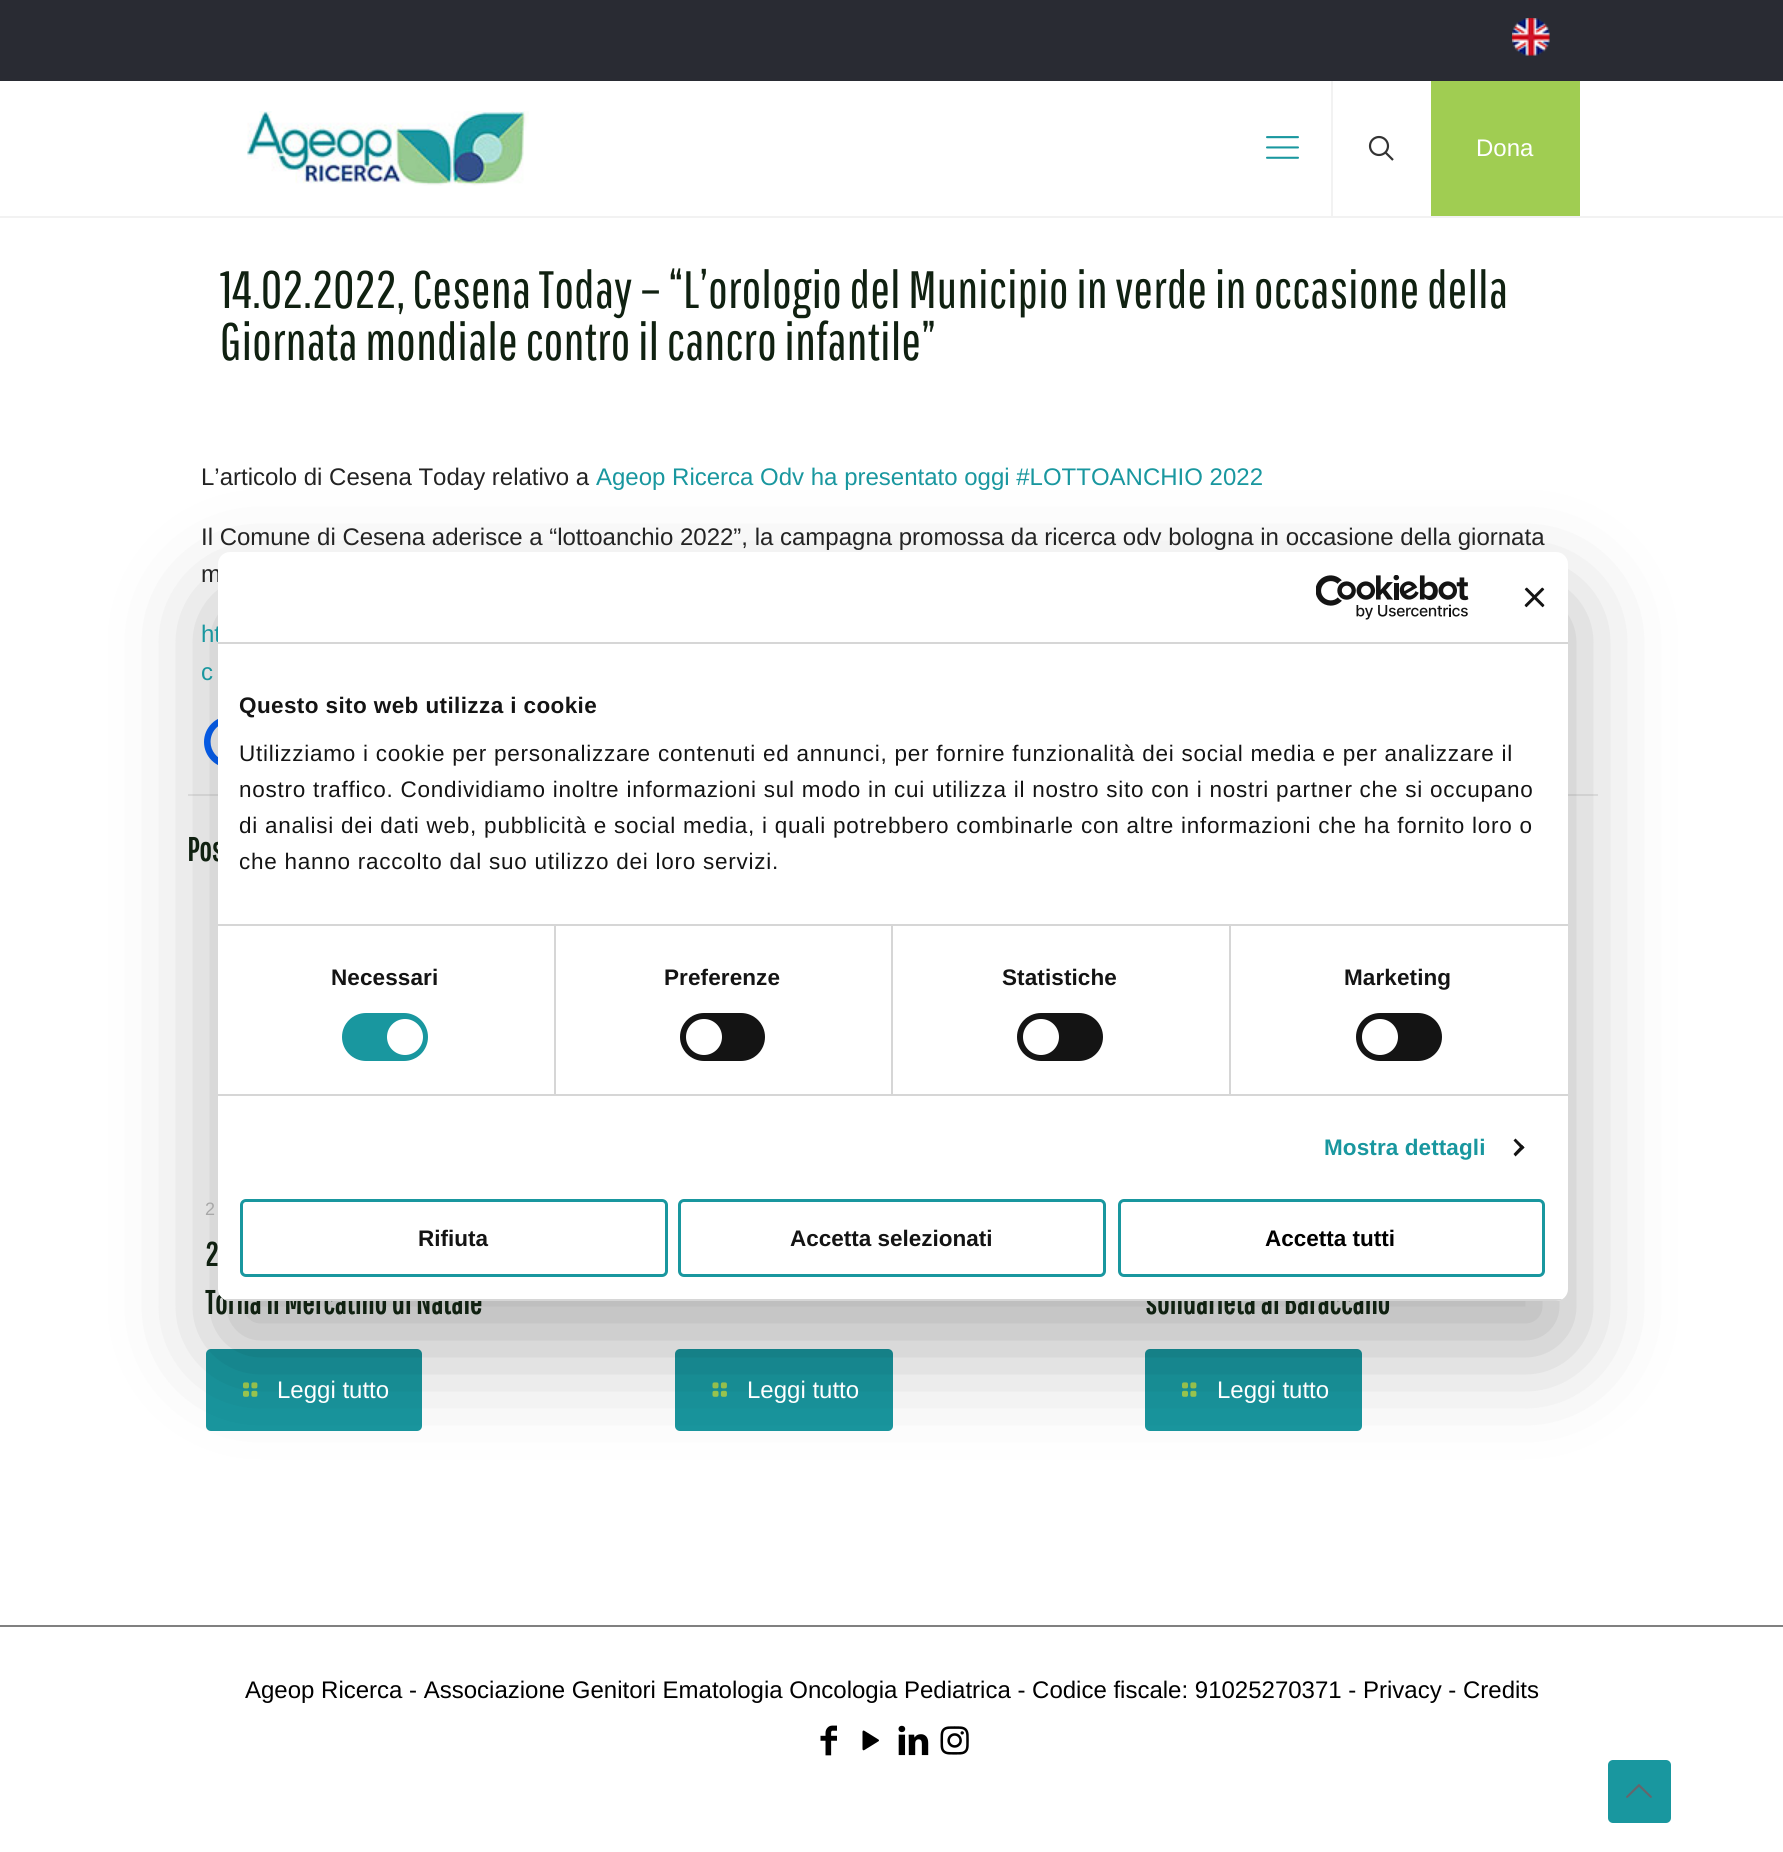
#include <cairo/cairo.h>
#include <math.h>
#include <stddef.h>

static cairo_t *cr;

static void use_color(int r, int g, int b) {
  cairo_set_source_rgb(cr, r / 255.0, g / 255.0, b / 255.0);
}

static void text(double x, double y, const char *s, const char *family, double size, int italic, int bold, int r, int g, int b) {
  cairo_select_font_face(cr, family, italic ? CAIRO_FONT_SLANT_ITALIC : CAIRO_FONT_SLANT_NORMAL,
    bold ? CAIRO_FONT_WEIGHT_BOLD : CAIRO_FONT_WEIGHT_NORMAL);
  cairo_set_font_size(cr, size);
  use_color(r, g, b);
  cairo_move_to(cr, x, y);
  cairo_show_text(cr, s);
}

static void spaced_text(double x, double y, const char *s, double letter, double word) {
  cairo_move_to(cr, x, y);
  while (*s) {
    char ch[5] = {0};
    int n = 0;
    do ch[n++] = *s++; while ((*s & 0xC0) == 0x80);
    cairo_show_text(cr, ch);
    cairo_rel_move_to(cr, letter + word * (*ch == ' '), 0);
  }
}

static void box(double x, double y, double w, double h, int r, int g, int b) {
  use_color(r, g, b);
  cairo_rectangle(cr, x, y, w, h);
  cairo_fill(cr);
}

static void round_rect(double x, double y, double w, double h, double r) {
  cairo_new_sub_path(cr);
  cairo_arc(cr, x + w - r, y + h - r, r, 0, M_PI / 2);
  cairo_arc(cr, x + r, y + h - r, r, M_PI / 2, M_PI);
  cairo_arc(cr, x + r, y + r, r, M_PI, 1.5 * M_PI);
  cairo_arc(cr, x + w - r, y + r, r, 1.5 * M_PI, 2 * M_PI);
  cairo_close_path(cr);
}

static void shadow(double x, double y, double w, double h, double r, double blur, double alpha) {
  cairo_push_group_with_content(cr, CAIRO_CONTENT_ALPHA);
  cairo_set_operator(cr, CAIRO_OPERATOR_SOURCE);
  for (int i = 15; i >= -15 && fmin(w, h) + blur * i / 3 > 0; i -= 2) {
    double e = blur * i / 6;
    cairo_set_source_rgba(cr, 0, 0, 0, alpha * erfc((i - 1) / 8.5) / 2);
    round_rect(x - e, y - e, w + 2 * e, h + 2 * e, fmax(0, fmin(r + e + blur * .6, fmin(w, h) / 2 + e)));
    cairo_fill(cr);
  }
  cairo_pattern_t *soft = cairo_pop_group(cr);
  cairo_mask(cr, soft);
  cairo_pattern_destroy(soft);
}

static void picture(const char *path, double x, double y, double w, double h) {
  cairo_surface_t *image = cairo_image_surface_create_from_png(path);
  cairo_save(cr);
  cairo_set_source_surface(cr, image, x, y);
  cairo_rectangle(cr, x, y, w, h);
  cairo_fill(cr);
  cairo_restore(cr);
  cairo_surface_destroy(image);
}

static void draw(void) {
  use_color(255, 255, 255);
  cairo_paint(cr);
  box(0, 0, 1783, 81, 41, 43, 51);
  picture("img_01.png", 1512, 18, 38, 38);
  box(0, 216, 1783, 2, 242, 242, 242);
  picture("img_02.png", 247, 111, 282, 75);
  picture("img_03.png", 1266, 136, 33, 23);
  box(1331, 81, 2, 135, 242, 242, 242);
  cairo_arc(cr, 1379, 146, 9, 0, 2 * M_PI);
  use_color(51, 51, 51);
  cairo_set_line_width(cr, 2.2);
  cairo_stroke(cr);
  cairo_new_path(cr);
  cairo_move_to(cr, 1385.5, 152.5);
  cairo_line_to(cr, 1393, 160);
  cairo_stroke(cr);
  box(1431, 81, 149, 135, 160, 205, 82);
  use_color(7, 101, 254);
  round_rect(204, 716, 53, 52, 26);
  cairo_fill(cr);
  picture("img_04.png", 210, 726, 8, 31);
  box(188, 794, 1410, 2, 235, 235, 235);
  use_color(25, 151, 159);
  round_rect(206, 1349, 216, 82, 5);
  cairo_fill(cr);
  picture("img_05.png", 243, 1382, 15, 15);
  round_rect(675, 1349, 218, 82, 5);
  cairo_fill(cr);
  picture("img_06.png", 712, 1382, 15, 15);
  round_rect(1145, 1349, 217, 82, 5);
  cairo_fill(cr);
  picture("img_05.png", 1182, 1382, 15, 15);
  box(0, 1625, 1783, 2, 128, 128, 128);
  picture("img_07.png", 820, 1725, 17, 31);
  picture("img_08.png", 862, 1730, 17, 21);
  picture("img_09.png", 898, 1725, 31, 31);
  picture("img_10.png", 940, 1726, 29, 29);
  use_color(0, 0, 0);
  shadow(218, 600, 1350, 749, 12, 51, 0.3);
  use_color(25, 151, 159);
  round_rect(1608, 1760, 63, 63, 5);
  cairo_fill(cr);
  picture("img_13.png", 1626, 1784, 26, 14);
  text(1476, 156, "Dona", "Liberation Sans", 24, 0, 0, 255, 255, 255);
  text(220, 308, "14.02.2022, Cesena Today – “L’orologio del Municipio in verde in occasione della", "Pathway Gothic One", 52.5, 0, 0, 16, 33, 17);
  text(220, 360, "Giornata mondiale contro il cancro infantile”", "Pathway Gothic One", 52.5, 0, 0, 16, 33, 17);
  text(201, 485, "L’articolo di Cesena Today relativo a", "Liberation Sans", 24, 0, 0, 35, 35, 35);
  text(596, 485, "Ageop Ricerca Odv ha presentato oggi #LOTTOANCHIO 2022", "Liberation Sans", 24, 0, 0, 25, 151, 159);
  text(201, 545, "Il Comune di Cesena aderisce a “lottoanchio 2022”, la campagna promossa da ricerca odv bologna in occasione della giornata", "Liberation Sans", 24, 0, 0, 35, 35, 35);
  text(201, 582, "m", "Liberation Sans", 24, 0, 0, 35, 35, 35);
  text(201, 642, "ht", "Liberation Sans", 24, 0, 0, 25, 151, 159);
  text(201, 680, "c", "Liberation Sans", 24, 0, 0, 25, 151, 159);
  text(187, 861, "Pos", "Pathway Gothic One", 33, 0, 1, 16, 33, 17);
  text(205, 1215, "2", "Liberation Sans", 18, 0, 0, 168, 168, 168);
  text(205, 1266, "2", "Pathway Gothic One", 33, 0, 1, 16, 33, 17);
  text(205, 1314, "Torna il Mercatino di Natale", "Pathway Gothic One", 33, 0, 1, 16, 33, 17);
  text(277, 1398, "Leggi tutto", "Liberation Sans", 24, 0, 0, 255, 255, 255);
  text(747, 1398, "Leggi tutto", "Liberation Sans", 24, 0, 0, 255, 255, 255);
  text(1145, 1314, "solidarietà al Baraccano", "Pathway Gothic One", 33, 0, 1, 16, 33, 17);
  text(1217, 1398, "Leggi tutto", "Liberation Sans", 24, 0, 0, 255, 255, 255);
  text(245, 1698, "Ageop Ricerca - Associazione Genitori Ematologia Oncologia Pediatrica - Codice fiscale: 91025270371 - Privacy - Credits", "Liberation Sans", 24, 0, 0, 0, 0, 0);
  use_color(255, 255, 255);
  round_rect(218, 552, 1350, 749, 12);
  cairo_fill(cr);
  box(218, 642, 1350, 2, 214, 214, 214);
  picture("img_11.png", 1316, 575, 153, 45);
  picture("img_12.png", 1524, 587, 21, 21);
  box(218, 924, 1350, 2, 214, 214, 214);
  cairo_select_font_face(cr, "Liberation Sans", CAIRO_FONT_SLANT_NORMAL, CAIRO_FONT_WEIGHT_BOLD);
  cairo_set_font_size(cr, 22.5);
  use_color(20, 20, 20);
  spaced_text(239, 713, "Questo sito web utilizza i cookie", 0.4, 0);
  cairo_select_font_face(cr, "Liberation Sans", CAIRO_FONT_SLANT_NORMAL, CAIRO_FONT_WEIGHT_NORMAL);
  spaced_text(239, 761, "Utilizziamo i cookie per personalizzare contenuti ed annunci, per fornire funzionalità dei social media e per analizzare il", 0.75, 0);
  spaced_text(239, 797, "nostro traffico. Condividiamo inoltre informazioni sul modo in cui utilizza il nostro sito con i nostri partner che si occupano", 0.75, 0);
  spaced_text(239, 833, "di analisi dei dati web, pubblicità e social media, i quali potrebbero combinarle con altre informazioni che ha fornito loro o", 0.75, 0);
  spaced_text(239, 869, "che hanno raccolto dal suo utilizzo dei loro servizi.", 0.75, 0);
  box(218, 1094, 1350, 2, 214, 214, 214);
  box(554, 926, 2, 168, 214, 214, 214);
  cairo_select_font_face(cr, "Liberation Sans", CAIRO_FONT_SLANT_NORMAL, CAIRO_FONT_WEIGHT_BOLD);
  use_color(20, 20, 20);
  spaced_text(331, 985, "Necessari", 0.1, 0);
  use_color(25, 151, 159);
  round_rect(342, 1013, 86, 48, 24);
  cairo_fill(cr);
  use_color(255, 255, 255);
  cairo_arc(cr, 405, 1037, 18, 0, 2 * M_PI);
  cairo_fill(cr);
  box(891, 926, 2, 168, 214, 214, 214);
  use_color(20, 20, 20);
  spaced_text(664, 985, "Preferenze", 0.1, 0);
  round_rect(680, 1013, 85, 48, 24);
  cairo_fill(cr);
  use_color(255, 255, 255);
  cairo_arc(cr, 704, 1037, 18, 0, 2 * M_PI);
  cairo_fill(cr);
  box(1229, 926, 2, 168, 214, 214, 214);
  use_color(20, 20, 20);
  spaced_text(1002, 985, "Statistiche", 0.1, 0);
  round_rect(1017, 1013, 86, 48, 24);
  cairo_fill(cr);
  use_color(255, 255, 255);
  cairo_arc(cr, 1041, 1037, 18, 0, 2 * M_PI);
  cairo_fill(cr);
  use_color(20, 20, 20);
  spaced_text(1344, 985, "Marketing", 0.1, 0);
  round_rect(1356, 1013, 86, 48, 24);
  cairo_fill(cr);
  use_color(255, 255, 255);
  cairo_arc(cr, 1380, 1037, 18, 0, 2 * M_PI);
  cairo_fill(cr);
  use_color(25, 151, 159);
  spaced_text(1324, 1155, "Mostra dettagli", 0.1, 0);
  use_color(20, 20, 20);
  cairo_new_path(cr);
  cairo_move_to(cr, 1515.5, 1138.5);
  cairo_line_to(cr, 1524.5, 1147.5);
  cairo_line_to(cr, 1522, 1149.5);
  cairo_line_to(cr, 1513.5, 1140.5);
  cairo_close_path(cr);
  cairo_fill(cr);
  cairo_new_path(cr);
  cairo_move_to(cr, 1522, 1145);
  cairo_line_to(cr, 1524.5, 1147.5);
  cairo_line_to(cr, 1515.5, 1156.5);
  cairo_line_to(cr, 1513.5, 1154);
  cairo_close_path(cr);
  cairo_fill(cr);
  cairo_save(cr);
  round_rect(218, 552, 1350, 749, 12);
  cairo_clip(cr);
  box(218, 1299, 1350, 2, 214, 214, 214);
  cairo_restore(cr);
  round_rect(241.5, 1200.5, 425, 75, 4.5);
  use_color(25, 151, 159);
  cairo_set_line_width(cr, 3);
  cairo_stroke(cr);
  text(418, 1246, "Rifiuta", "Liberation Sans", 22.5, 0, 1, 20, 20, 20);
  round_rect(679.5, 1200.5, 425, 75, 4.5);
  use_color(25, 151, 159);
  cairo_stroke(cr);
  text(790, 1246, "Accetta selezionati", "Liberation Sans", 22.5, 0, 1, 20, 20, 20);
  round_rect(1119.5, 1200.5, 424, 75, 4.5);
  use_color(25, 151, 159);
  cairo_stroke(cr);
  text(1265, 1246, "Accetta tutti", "Liberation Sans", 22.5, 0, 1, 0, 0, 0);
}

int main(void) {
  cairo_surface_t *surface = cairo_image_surface_create(CAIRO_FORMAT_RGB24, 1783, 1852);
  cr = cairo_create(surface);
  cairo_font_options_t *options = cairo_font_options_create();
  cairo_font_options_set_hint_metrics(options, CAIRO_HINT_METRICS_OFF);
  cairo_font_options_set_hint_style(options, CAIRO_HINT_STYLE_NONE);
  cairo_set_font_options(cr, options);
  cairo_set_miter_limit(cr, 4);
  draw();
  cairo_surface_write_to_png(surface, "out.png");
  cairo_font_options_destroy(options);
  cairo_destroy(cr);
  cairo_surface_destroy(surface);
  return 0;
}
